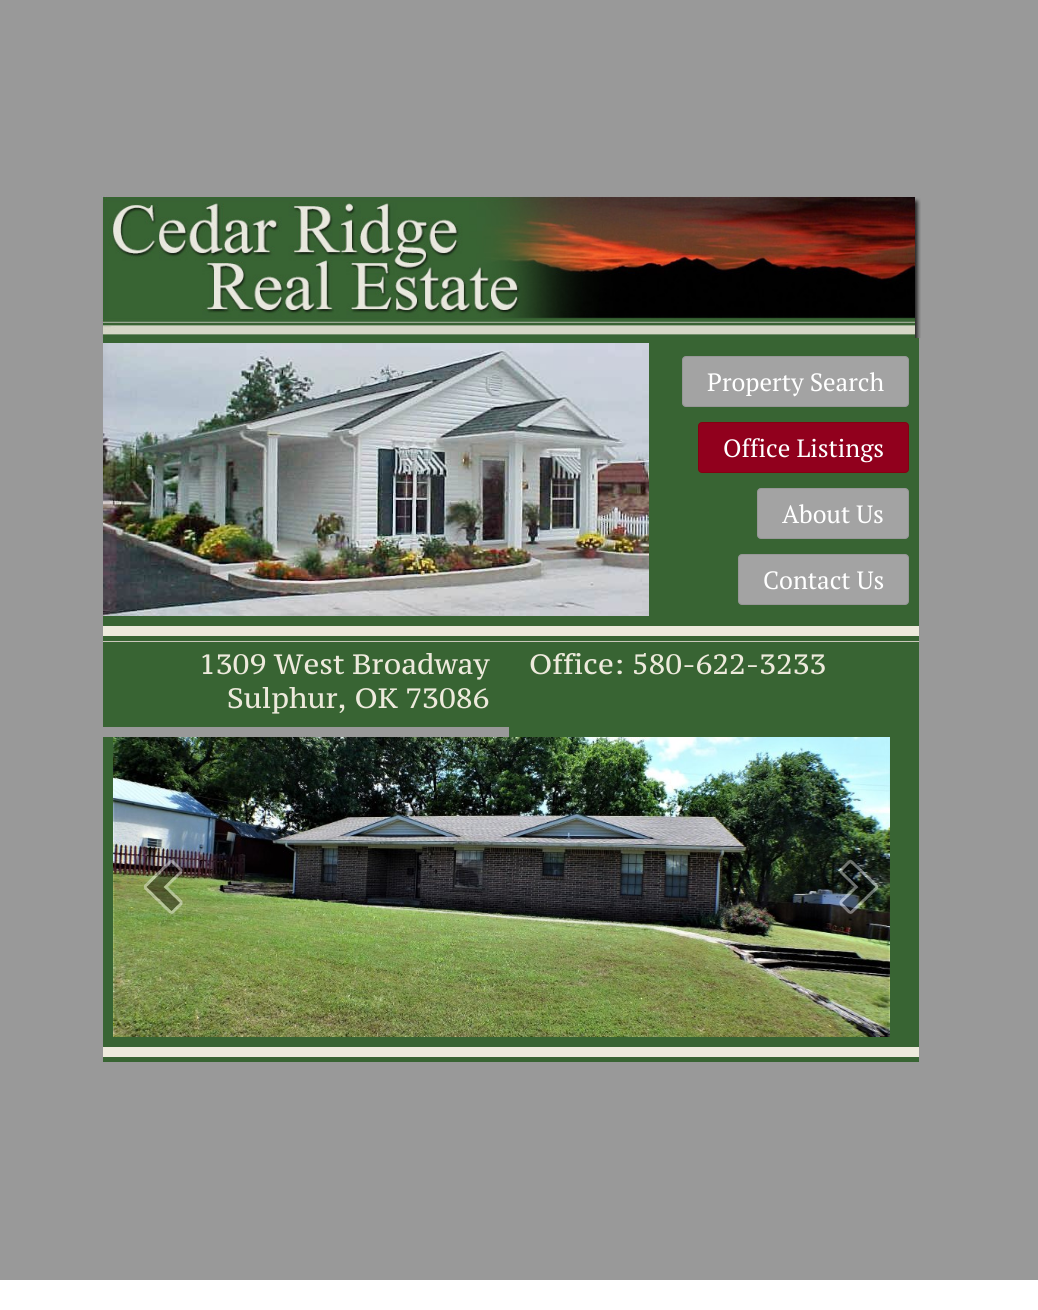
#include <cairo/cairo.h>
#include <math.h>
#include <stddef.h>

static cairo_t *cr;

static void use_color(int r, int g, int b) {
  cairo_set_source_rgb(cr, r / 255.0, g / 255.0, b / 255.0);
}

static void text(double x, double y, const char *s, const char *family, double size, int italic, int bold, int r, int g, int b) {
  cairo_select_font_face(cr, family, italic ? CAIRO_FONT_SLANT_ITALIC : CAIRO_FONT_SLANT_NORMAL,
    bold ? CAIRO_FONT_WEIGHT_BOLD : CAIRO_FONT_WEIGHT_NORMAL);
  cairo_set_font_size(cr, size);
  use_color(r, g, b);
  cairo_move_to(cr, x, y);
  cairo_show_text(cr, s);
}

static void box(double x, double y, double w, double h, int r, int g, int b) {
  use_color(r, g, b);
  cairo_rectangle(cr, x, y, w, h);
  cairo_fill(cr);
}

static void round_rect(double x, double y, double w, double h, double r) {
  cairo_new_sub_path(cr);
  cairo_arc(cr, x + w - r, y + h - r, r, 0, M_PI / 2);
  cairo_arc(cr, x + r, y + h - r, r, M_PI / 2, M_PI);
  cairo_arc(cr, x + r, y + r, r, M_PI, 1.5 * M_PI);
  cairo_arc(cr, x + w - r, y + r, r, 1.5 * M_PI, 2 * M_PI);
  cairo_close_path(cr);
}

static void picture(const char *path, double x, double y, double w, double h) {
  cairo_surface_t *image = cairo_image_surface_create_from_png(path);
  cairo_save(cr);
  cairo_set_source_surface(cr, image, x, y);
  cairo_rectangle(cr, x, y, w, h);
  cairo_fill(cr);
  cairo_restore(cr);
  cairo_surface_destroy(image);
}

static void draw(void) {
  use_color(255, 255, 255);
  cairo_paint(cr);
  box(0, 0, 1038, 1280, 153, 153, 153);
  picture("img_01.png", 101, 195, 820, 143);
  box(103, 338, 546, 5, 56, 100, 51);
  picture("img_02.png", 103, 343, 546, 273);
  box(649, 338, 270, 278, 56, 100, 51);
  use_color(163, 163, 163);
  round_rect(682.5, 356.5, 226, 50, 3.5);
  cairo_fill_preserve(cr);
  use_color(151, 151, 151);
  cairo_set_line_width(cr, 1);
  cairo_stroke(cr);
  use_color(145, 0, 29);
  round_rect(698.5, 422.5, 210, 50, 3.5);
  cairo_fill_preserve(cr);
  use_color(133, 0, 17);
  cairo_stroke(cr);
  use_color(163, 163, 163);
  round_rect(757.5, 488.5, 151, 50, 3.5);
  cairo_fill_preserve(cr);
  use_color(151, 151, 151);
  cairo_stroke(cr);
  use_color(163, 163, 163);
  round_rect(738.5, 554.5, 170, 50, 3.5);
  cairo_fill_preserve(cr);
  use_color(151, 151, 151);
  cairo_stroke(cr);
  box(103, 616, 816, 25, 56, 100, 51);
  box(103, 626, 816, 10, 237, 234, 220);
  box(103, 642, 406, 85, 56, 100, 51);
  box(103, 641, 816, 1, 202, 200, 187);
  box(509, 642, 410, 95, 56, 100, 51);
  box(103, 737, 816, 325, 56, 100, 51);
  picture("img_03.png", 113, 737, 777, 300);
  picture("img_04.png", 143, 859, 40, 55);
  picture("img_05.png", 839, 859, 40, 55);
  box(103, 1047, 816, 10, 237, 234, 220);
  text(707, 391, "Property Search", "PT Serif", 25, 0, 0, 255, 255, 255);
  text(723, 457, "Office Listings", "PT Serif", 25, 0, 0, 255, 255, 255);
  text(782, 523, "About Us", "PT Serif", 25, 0, 0, 255, 255, 255);
  text(763, 589, "Contact Us", "PT Serif", 25, 0, 0, 255, 255, 255);
  text(199, 674, "1309 West Broadway", "PT Serif Caption", 28, 0, 0, 237, 234, 220);
  text(227, 708, "Sulphur, OK 73086", "PT Serif Caption", 28, 0, 0, 237, 234, 220);
  text(529, 674, "Office: 580-622-3233", "PT Serif Caption", 28, 0, 0, 237, 234, 220);
}

int main(void) {
  cairo_surface_t *surface = cairo_image_surface_create(CAIRO_FORMAT_RGB24, 1038, 1310);
  cr = cairo_create(surface);
  cairo_font_options_t *options = cairo_font_options_create();
  cairo_font_options_set_hint_metrics(options, CAIRO_HINT_METRICS_OFF);
  cairo_font_options_set_hint_style(options, CAIRO_HINT_STYLE_NONE);
  cairo_set_font_options(cr, options);
  cairo_set_miter_limit(cr, 4);
  draw();
  cairo_surface_write_to_png(surface, "out.png");
  cairo_font_options_destroy(options);
  cairo_destroy(cr);
  cairo_surface_destroy(surface);
  return 0;
}
